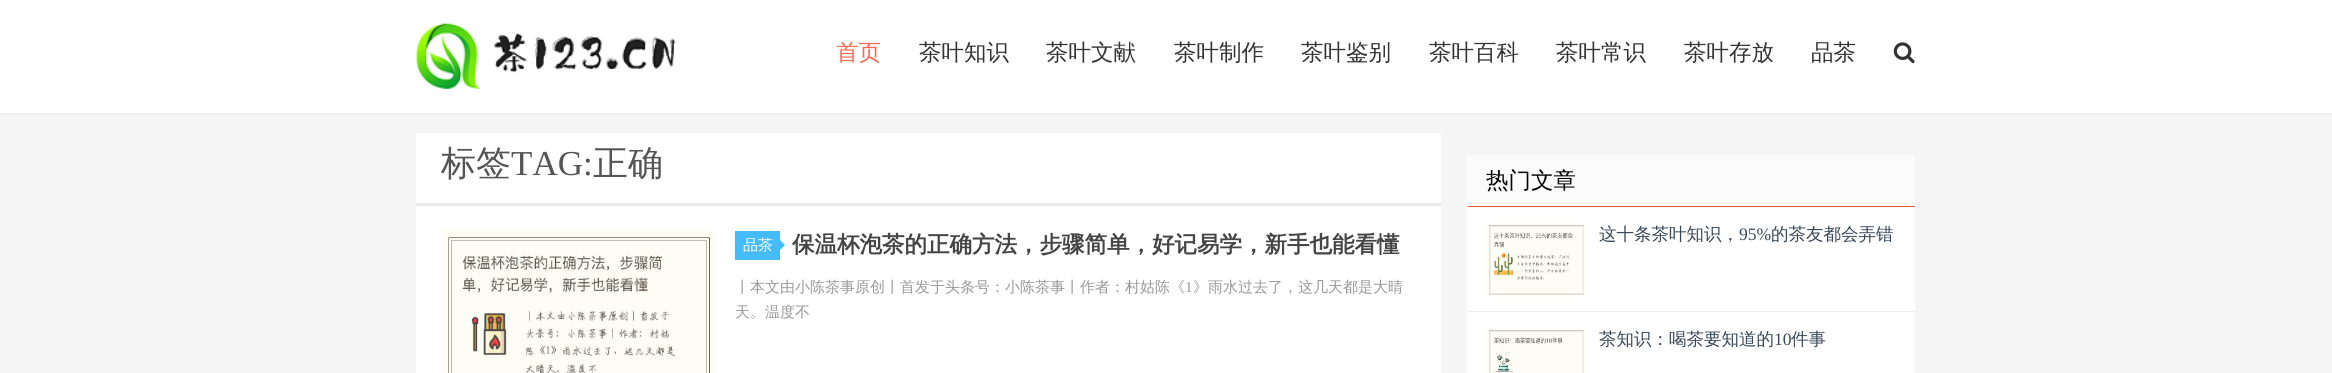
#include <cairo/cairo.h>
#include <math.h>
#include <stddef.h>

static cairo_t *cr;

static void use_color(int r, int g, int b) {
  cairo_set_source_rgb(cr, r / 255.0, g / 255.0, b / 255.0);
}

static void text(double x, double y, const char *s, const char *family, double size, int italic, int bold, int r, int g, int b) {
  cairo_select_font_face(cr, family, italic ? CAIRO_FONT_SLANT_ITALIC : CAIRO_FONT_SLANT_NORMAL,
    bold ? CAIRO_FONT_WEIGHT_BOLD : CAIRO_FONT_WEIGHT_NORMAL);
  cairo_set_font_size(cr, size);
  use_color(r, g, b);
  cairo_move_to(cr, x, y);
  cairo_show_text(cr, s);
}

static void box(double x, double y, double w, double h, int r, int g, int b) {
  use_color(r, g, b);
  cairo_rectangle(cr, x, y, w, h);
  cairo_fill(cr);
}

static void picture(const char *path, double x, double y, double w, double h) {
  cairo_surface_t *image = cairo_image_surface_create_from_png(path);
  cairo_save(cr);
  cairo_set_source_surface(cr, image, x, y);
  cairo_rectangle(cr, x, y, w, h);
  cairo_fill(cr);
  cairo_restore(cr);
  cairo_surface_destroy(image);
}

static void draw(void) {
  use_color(245, 245, 245);
  cairo_paint(cr);
  box(0, 0, 2332, 113, 255, 255, 255);
  box(0, 113, 2332, 1, 235, 235, 235);
  picture("img_01.png", 416, 23, 260, 66);
  picture("img_02.png", 1893, 42, 22, 22);
  box(416, 133, 1025, 240, 255, 255, 255);
  box(416, 203, 1025, 3, 234, 234, 234);
  picture("img_03.png", 441, 230, 275, 143);
  box(735, 231, 45, 29, 69, 188, 249);
  cairo_new_path(cr);
  cairo_move_to(cr, 780, 250);
  cairo_line_to(cr, 780, 240);
  cairo_line_to(cr, 785, 245);
  cairo_close_path(cr);
  cairo_fill(cr);
  box(1467, 155, 448, 218, 255, 255, 255);
  box(1468, 155, 447, 53, 251, 251, 251);
  box(1468, 206, 447, 1, 225, 92, 52);
  box(1468, 311, 447, 1, 238, 238, 238);
  picture("img_04.png", 1486, 222, 100, 76);
  picture("img_05.png", 1486, 327, 100, 46);
  text(836, 60, "首页", "WenQuanYi Zen Hei Medium", 22.5, 0, 0, 255, 102, 81);
  text(919, 60, "茶叶知识", "WenQuanYi Zen Hei Medium", 22.5, 0, 0, 51, 51, 51);
  text(1046, 60, "茶叶文献", "WenQuanYi Zen Hei Medium", 22.5, 0, 0, 51, 51, 51);
  text(1174, 60, "茶叶制作", "WenQuanYi Zen Hei Medium", 22.5, 0, 0, 51, 51, 51);
  text(1301, 60, "茶叶鉴别", "WenQuanYi Zen Hei Medium", 22.5, 0, 0, 51, 51, 51);
  text(1429, 60, "茶叶百科", "WenQuanYi Zen Hei Medium", 22.5, 0, 0, 51, 51, 51);
  text(1556, 60, "茶叶常识", "WenQuanYi Zen Hei Medium", 22.5, 0, 0, 51, 51, 51);
  text(1684, 60, "茶叶存放", "WenQuanYi Zen Hei Medium", 22.5, 0, 0, 51, 51, 51);
  text(1811, 60, "品茶", "WenQuanYi Zen Hei Medium", 22.5, 0, 0, 51, 51, 51);
  text(441, 175, "标签", "WenQuanYi Zen Hei Medium", 35, 0, 0, 85, 85, 85);
  text(511, 175, "TAG:", "Liberation Serif", 35, 0, 0, 85, 85, 85);
  text(593, 175, "正确", "WenQuanYi Zen Hei Medium", 35, 0, 0, 85, 85, 85);
  text(743, 250, "品茶", "WenQuanYi Zen Hei Medium", 15, 0, 0, 255, 255, 255);
  text(792, 252, "保温杯泡茶的正确方法，步骤简单，好记易学，新手也能看懂", "WenQuanYi Zen Hei", 22.5, 0, 1, 69, 69, 69);
  text(735, 292, "丨本文由小陈茶事原创丨首发于头条号：小陈茶事丨作者：村姑陈《", "WenQuanYi Zen Hei Medium", 15, 0, 0, 153, 153, 153);
  text(1185, 292, "1", "Liberation Serif", 15, 0, 0, 153, 153, 153);
  text(1193, 292, "》雨水过去了，这几天都是大晴", "WenQuanYi Zen Hei Medium", 15, 0, 0, 153, 153, 153);
  text(735, 317, "天。温度不", "WenQuanYi Zen Hei Medium", 15, 0, 0, 153, 153, 153);
  text(1486, 188, "热门文章", "WenQuanYi Zen Hei Medium", 22.5, 0, 0, 0, 0, 0);
  text(1599, 240, "这十条茶叶知识，", "WenQuanYi Zen Hei Medium", 17.5, 0, 0, 56, 72, 90);
  text(1739, 240, "95%", "Liberation Serif", 17.5, 0, 0, 56, 72, 90);
  text(1771, 240, "的茶友都会弄错", "WenQuanYi Zen Hei Medium", 17.5, 0, 0, 56, 72, 90);
  text(1599, 345, "茶知识：喝茶要知道的", "WenQuanYi Zen Hei Medium", 17.5, 0, 0, 56, 72, 90);
  text(1774, 345, "10", "Liberation Serif", 17.5, 0, 0, 56, 72, 90);
  text(1791, 345, "件事", "WenQuanYi Zen Hei Medium", 17.5, 0, 0, 56, 72, 90);
}

int main(void) {
  cairo_surface_t *surface = cairo_image_surface_create(CAIRO_FORMAT_RGB24, 2332, 373);
  cr = cairo_create(surface);
  cairo_font_options_t *options = cairo_font_options_create();
  cairo_font_options_set_hint_metrics(options, CAIRO_HINT_METRICS_OFF);
  cairo_font_options_set_hint_style(options, CAIRO_HINT_STYLE_NONE);
  cairo_set_font_options(cr, options);
  cairo_set_miter_limit(cr, 4);
  draw();
  cairo_surface_write_to_png(surface, "out.png");
  cairo_font_options_destroy(options);
  cairo_destroy(cr);
  cairo_surface_destroy(surface);
  return 0;
}
